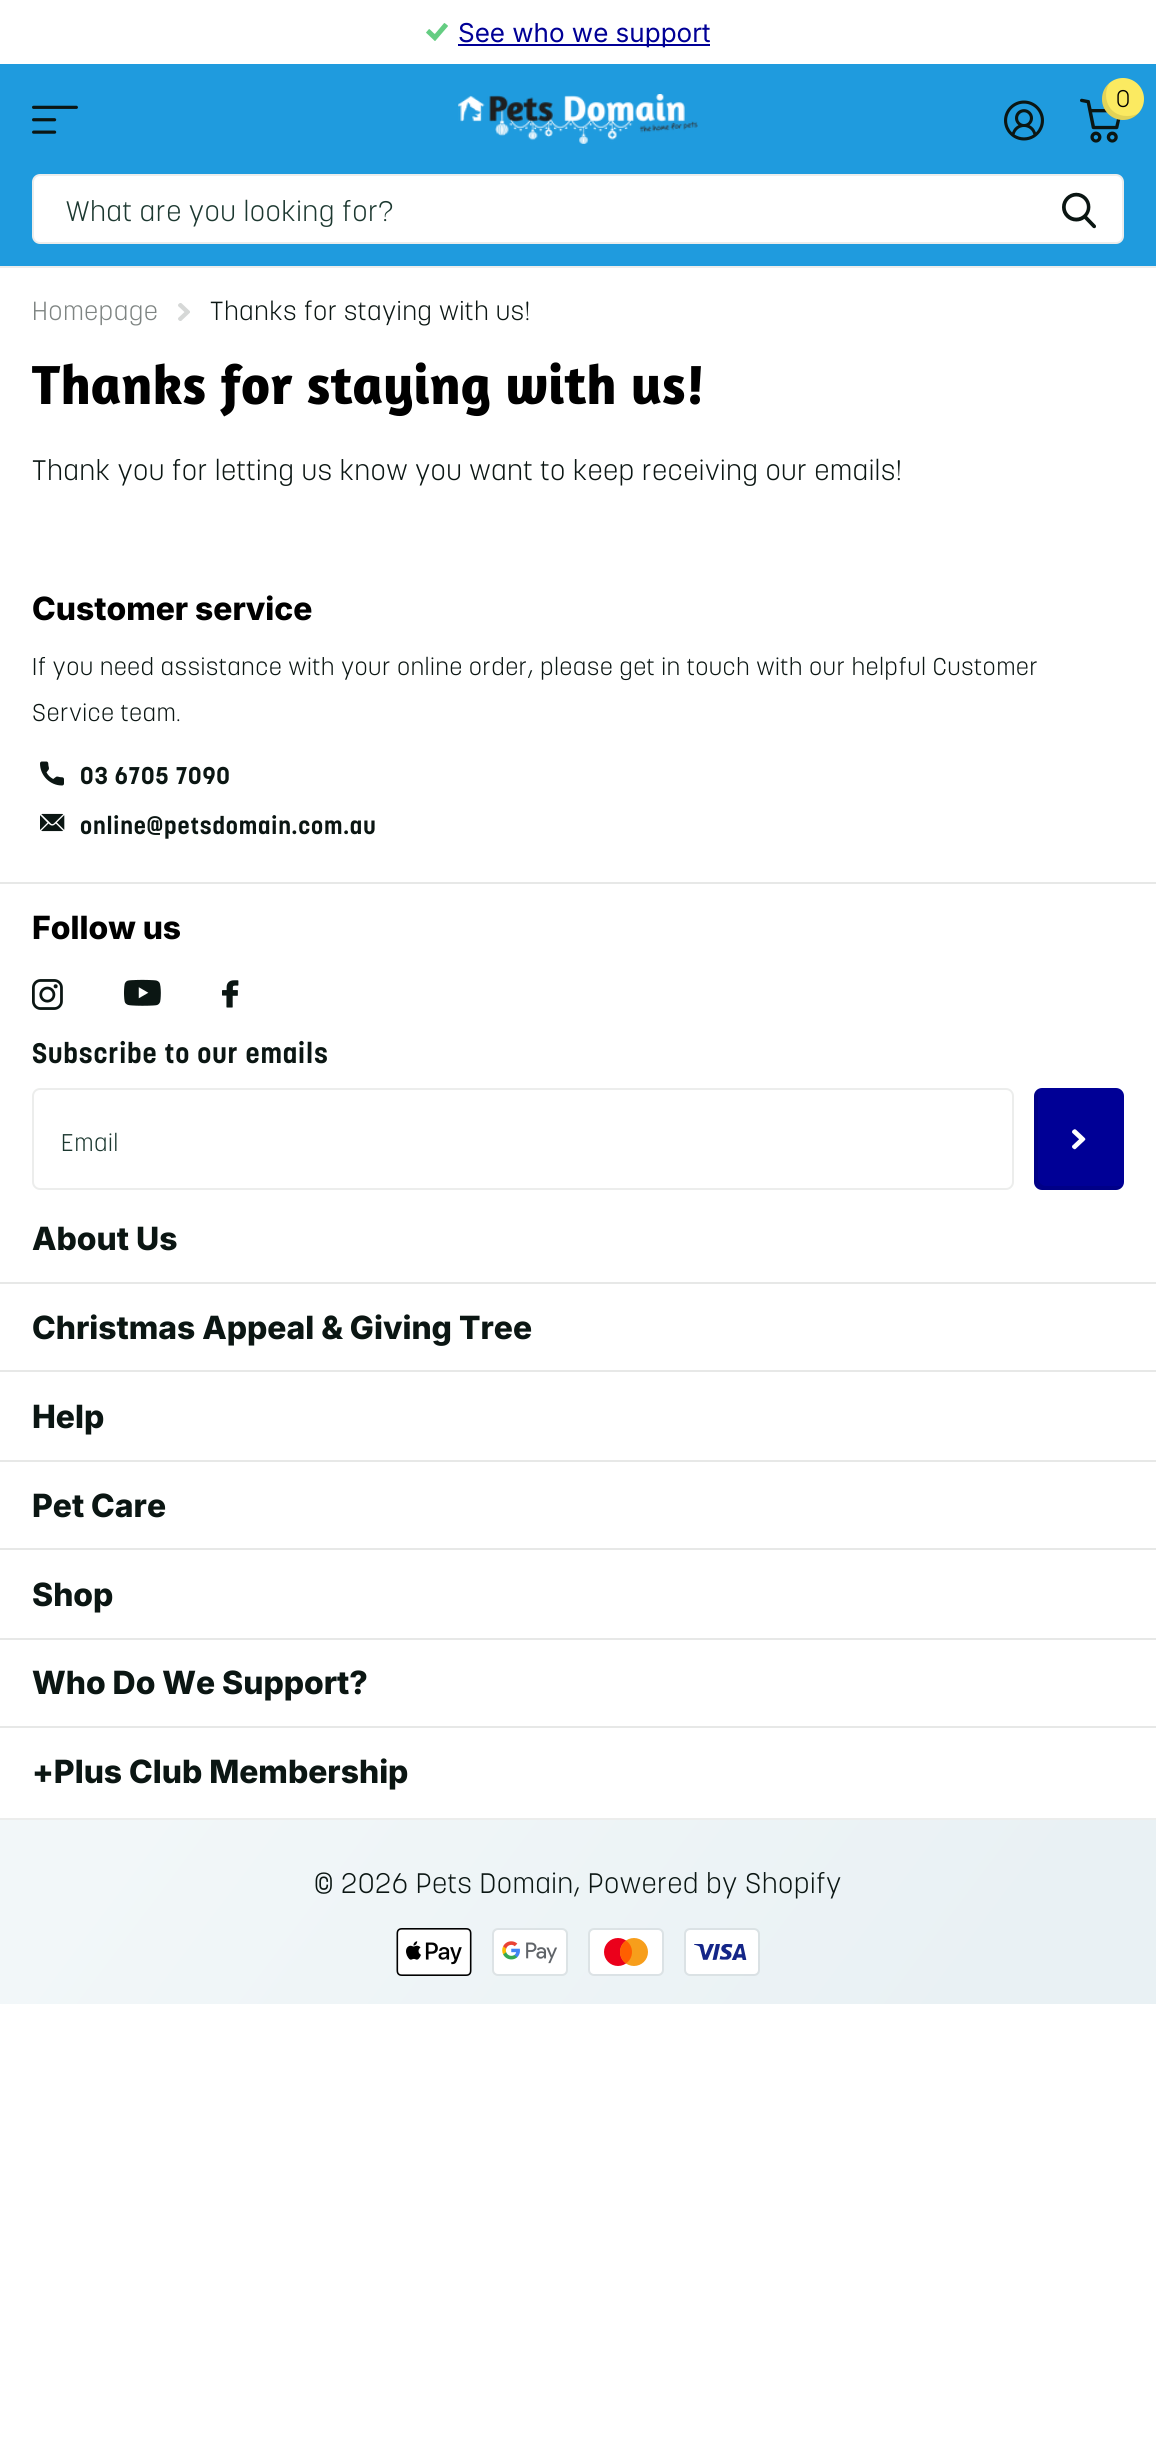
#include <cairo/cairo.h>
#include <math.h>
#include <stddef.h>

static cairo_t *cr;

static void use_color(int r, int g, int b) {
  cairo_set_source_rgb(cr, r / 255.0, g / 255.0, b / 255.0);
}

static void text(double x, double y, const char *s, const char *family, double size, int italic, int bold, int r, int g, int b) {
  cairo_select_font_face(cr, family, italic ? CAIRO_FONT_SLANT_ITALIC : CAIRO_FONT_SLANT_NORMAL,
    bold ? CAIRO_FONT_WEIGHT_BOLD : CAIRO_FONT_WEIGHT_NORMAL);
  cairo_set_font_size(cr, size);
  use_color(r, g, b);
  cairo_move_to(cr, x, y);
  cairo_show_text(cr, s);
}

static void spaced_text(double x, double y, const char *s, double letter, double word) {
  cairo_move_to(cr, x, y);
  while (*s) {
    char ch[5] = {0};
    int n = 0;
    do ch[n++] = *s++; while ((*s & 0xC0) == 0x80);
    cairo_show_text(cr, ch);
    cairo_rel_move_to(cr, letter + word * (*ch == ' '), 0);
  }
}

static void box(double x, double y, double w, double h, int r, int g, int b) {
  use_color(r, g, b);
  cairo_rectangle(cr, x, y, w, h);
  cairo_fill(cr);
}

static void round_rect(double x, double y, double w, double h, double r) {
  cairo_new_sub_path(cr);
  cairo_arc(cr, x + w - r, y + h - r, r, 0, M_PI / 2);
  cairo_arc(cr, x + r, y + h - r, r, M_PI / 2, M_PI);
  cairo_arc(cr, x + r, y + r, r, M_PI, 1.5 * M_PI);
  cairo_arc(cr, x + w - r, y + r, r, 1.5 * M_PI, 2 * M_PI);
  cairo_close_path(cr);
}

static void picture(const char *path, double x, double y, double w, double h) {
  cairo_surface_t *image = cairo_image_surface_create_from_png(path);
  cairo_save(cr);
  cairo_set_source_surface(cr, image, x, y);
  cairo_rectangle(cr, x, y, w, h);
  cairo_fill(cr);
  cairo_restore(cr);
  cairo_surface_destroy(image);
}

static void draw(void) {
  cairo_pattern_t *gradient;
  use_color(255, 255, 255);
  cairo_paint(cr);
  picture("img_01.png", 426, 23, 22, 18);
  box(458, 44, 252, 2, 0, 0, 150);
  box(0, 64, 1156, 202, 31, 155, 222);
  picture("img_02.png", 32, 105, 46, 29);
  picture("img_03.png", 458, 94, 240, 50);
  picture("img_04.png", 1004, 100, 40, 41);
  picture("img_05.png", 1080, 98, 41, 45);
  use_color(251, 234, 97);
  cairo_arc(cr, 1123, 99, 21, 0, 2 * M_PI);
  cairo_fill(cr);
  cairo_set_source_rgba(cr, 0, 0, 0, 0.1);
  cairo_new_path(cr);
  cairo_move_to(cr, 1139, 113);
  cairo_curve_to(cr, 1135.5, 115, 1132, 116, 1127, 116);
  cairo_curve_to(cr, 1107.5, 116, 1101.5, 95.5, 1109.5, 83);
  cairo_curve_to(cr, 1100, 91, 1099.5, 105, 1108, 114);
  cairo_curve_to(cr, 1116.5, 122.5, 1131, 122, 1139, 113);
  cairo_close_path(cr);
  cairo_fill(cr);
  use_color(255, 255, 255);
  round_rect(33, 175, 1090, 68, 7);
  cairo_fill_preserve(cr);
  use_color(236, 237, 236);
  cairo_stroke(cr);
  picture("img_06.png", 1062, 192, 34, 37);
  box(0, 266, 1156, 2, 236, 237, 236);
  picture("img_07.png", 178, 303, 12, 18);
  picture("img_08.png", 40, 761, 24, 25);
  picture("img_09.png", 40, 813, 25, 19);
  box(0, 882, 1156, 2, 231, 232, 231);
  picture("img_10.png", 32, 979, 31, 31);
  picture("img_11.png", 124, 979, 37, 27);
  picture("img_12.png", 222, 980, 17, 28);
  round_rect(33, 1089, 980, 100, 7);
  use_color(236, 237, 236);
  cairo_stroke(cr);
  use_color(0, 0, 150);
  round_rect(1034, 1088, 90, 102, 8);
  cairo_fill(cr);
  cairo_set_source_rgba(cr, 0, 0, 0, 0.1);
  cairo_new_path(cr);
  cairo_move_to(cr, 1039, 1089);
  cairo_curve_to(cr, 1036, 1090, 1034, 1093, 1034, 1096);
  cairo_line_to(cr, 1034, 1182);
  cairo_curve_to(cr, 1034, 1186, 1038, 1190, 1042, 1190);
  cairo_line_to(cr, 1116, 1190);
  cairo_curve_to(cr, 1119, 1190, 1122, 1188, 1123, 1185);
  cairo_line_to(cr, 1120, 1186);
  cairo_line_to(cr, 1046, 1186);
  cairo_curve_to(cr, 1042, 1186, 1038, 1182, 1038, 1178);
  cairo_line_to(cr, 1038, 1092);
  cairo_close_path(cr);
  cairo_fill(cr);
  picture("img_13.png", 1072, 1129, 14, 21);
  box(0, 1282, 1156, 2, 231, 232, 231);
  box(0, 1370, 1156, 2, 231, 232, 231);
  box(0, 1460, 1156, 2, 231, 232, 231);
  box(0, 1548, 1156, 2, 231, 232, 231);
  box(0, 1638, 1156, 2, 231, 232, 231);
  box(0, 1726, 1156, 2, 231, 232, 231);
  gradient = cairo_pattern_create_linear(150, 1573, 1050, 2251);
  cairo_pattern_add_color_stop_rgba(gradient, 0.11, 0.949, 0.969, 0.976, 1);
  cairo_pattern_add_color_stop_rgba(gradient, 0.81, 0.914, 0.945, 0.957, 1);
  cairo_set_source(cr, gradient);
  cairo_pattern_destroy(gradient);
  cairo_rectangle(cr, 0, 1820, 1156, 184);
  cairo_fill(cr);
  box(0, 1818, 1156, 2, 236, 237, 236);
  picture("img_14.png", 396, 1928, 76, 48);
  picture("img_15.png", 492, 1928, 76, 48);
  picture("img_16.png", 588, 1928, 76, 48);
  picture("img_17.png", 684, 1928, 76, 48);
  text(458, 42, "See who we support", "Inter", 26, 0, 0, 0, 0, 150);
  cairo_select_font_face(cr, "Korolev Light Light", CAIRO_FONT_SLANT_NORMAL, CAIRO_FONT_WEIGHT_NORMAL);
  cairo_set_font_size(cr, 24);
  use_color(0, 0, 0);
  spaced_text(1116, 107, "0", 1, 0);
  cairo_set_font_size(cr, 28);
  use_color(28, 56, 48);
  spaced_text(66, 221, "What are you looking for?", 0.95, 0);
  cairo_set_font_size(cr, 26);
  use_color(126, 132, 130);
  spaced_text(32, 320, "Homepage", 0.85, 0);
  use_color(11, 22, 19);
  spaced_text(210, 320, "Thanks for staying with us!", 0.85, 0);
  text(32, 404, "Thanks for staying with us!", "Amaranth", 56, 0, 1, 0, 0, 0);
  cairo_select_font_face(cr, "Korolev Light Light", CAIRO_FONT_SLANT_NORMAL, CAIRO_FONT_WEIGHT_NORMAL);
  cairo_set_font_size(cr, 28);
  use_color(11, 22, 19);
  spaced_text(32, 480, "Thank you for letting us know you want to keep receiving our emails!", 0.85, 0);
  text(32, 620, "Customer service", "Inter ExtraBold", 32, 0, 0, 0, 0, 0);
  cairo_select_font_face(cr, "Korolev Light Light", CAIRO_FONT_SLANT_NORMAL, CAIRO_FONT_WEIGHT_NORMAL);
  cairo_set_font_size(cr, 24);
  use_color(11, 22, 19);
  spaced_text(32, 675, "If you need assistance with your online order, please get in touch with our helpful Customer", 0.85, 0);
  spaced_text(32, 721, "Service team.", 0.85, 0);
  cairo_select_font_face(cr, "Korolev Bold", CAIRO_FONT_SLANT_NORMAL, CAIRO_FONT_WEIGHT_BOLD);
  spaced_text(80, 784, "03 6705 7090", 0.85, 0);
  spaced_text(80, 834, "online@petsdomain.com.au", 0.85, 0);
  text(32, 939, "Follow us", "Inter ExtraBold", 32, 0, 0, 0, 0, 0);
  cairo_select_font_face(cr, "Korolev Bold", CAIRO_FONT_SLANT_NORMAL, CAIRO_FONT_WEIGHT_BOLD);
  cairo_set_font_size(cr, 28);
  use_color(11, 22, 19);
  spaced_text(32, 1063, "Subscribe to our emails", 0.85, 0);
  cairo_select_font_face(cr, "Korolev Light Light", CAIRO_FONT_SLANT_NORMAL, CAIRO_FONT_WEIGHT_NORMAL);
  cairo_set_font_size(cr, 24);
  use_color(28, 56, 48);
  spaced_text(61, 1151, "Email", 0.95, 0);
  text(32, 1250, "About Us", "Inter ExtraBold", 32, 0, 0, 11, 22, 19);
  text(32, 1339, "Christmas Appeal & Giving Tree", "Inter ExtraBold", 32, 0, 0, 11, 22, 19);
  text(32, 1428, "Help", "Inter ExtraBold", 32, 0, 0, 11, 22, 19);
  text(32, 1517, "Pet Care", "Inter ExtraBold", 32, 0, 0, 11, 22, 19);
  text(32, 1606, "Shop", "Inter ExtraBold", 32, 0, 0, 11, 22, 19);
  text(32, 1694, "Who Do We Support?", "Inter ExtraBold", 32, 0, 0, 11, 22, 19);
  text(32, 1783, "+Plus Club Membership", "Inter ExtraBold", 32, 0, 0, 11, 22, 19);
  cairo_select_font_face(cr, "Korolev Light Light", CAIRO_FONT_SLANT_NORMAL, CAIRO_FONT_WEIGHT_NORMAL);
  cairo_set_font_size(cr, 28);
  spaced_text(314, 1893, "© 2026 Pets Domain, Powered by Shopify", 0.85, 0);
}

int main(void) {
  cairo_surface_t *surface = cairo_image_surface_create(CAIRO_FORMAT_RGB24, 1156, 2456);
  cr = cairo_create(surface);
  cairo_font_options_t *options = cairo_font_options_create();
  cairo_font_options_set_hint_metrics(options, CAIRO_HINT_METRICS_OFF);
  cairo_font_options_set_hint_style(options, CAIRO_HINT_STYLE_NONE);
  cairo_set_font_options(cr, options);
  cairo_set_miter_limit(cr, 4);
  draw();
  cairo_surface_write_to_png(surface, "out.png");
  cairo_font_options_destroy(options);
  cairo_destroy(cr);
  cairo_surface_destroy(surface);
  return 0;
}
